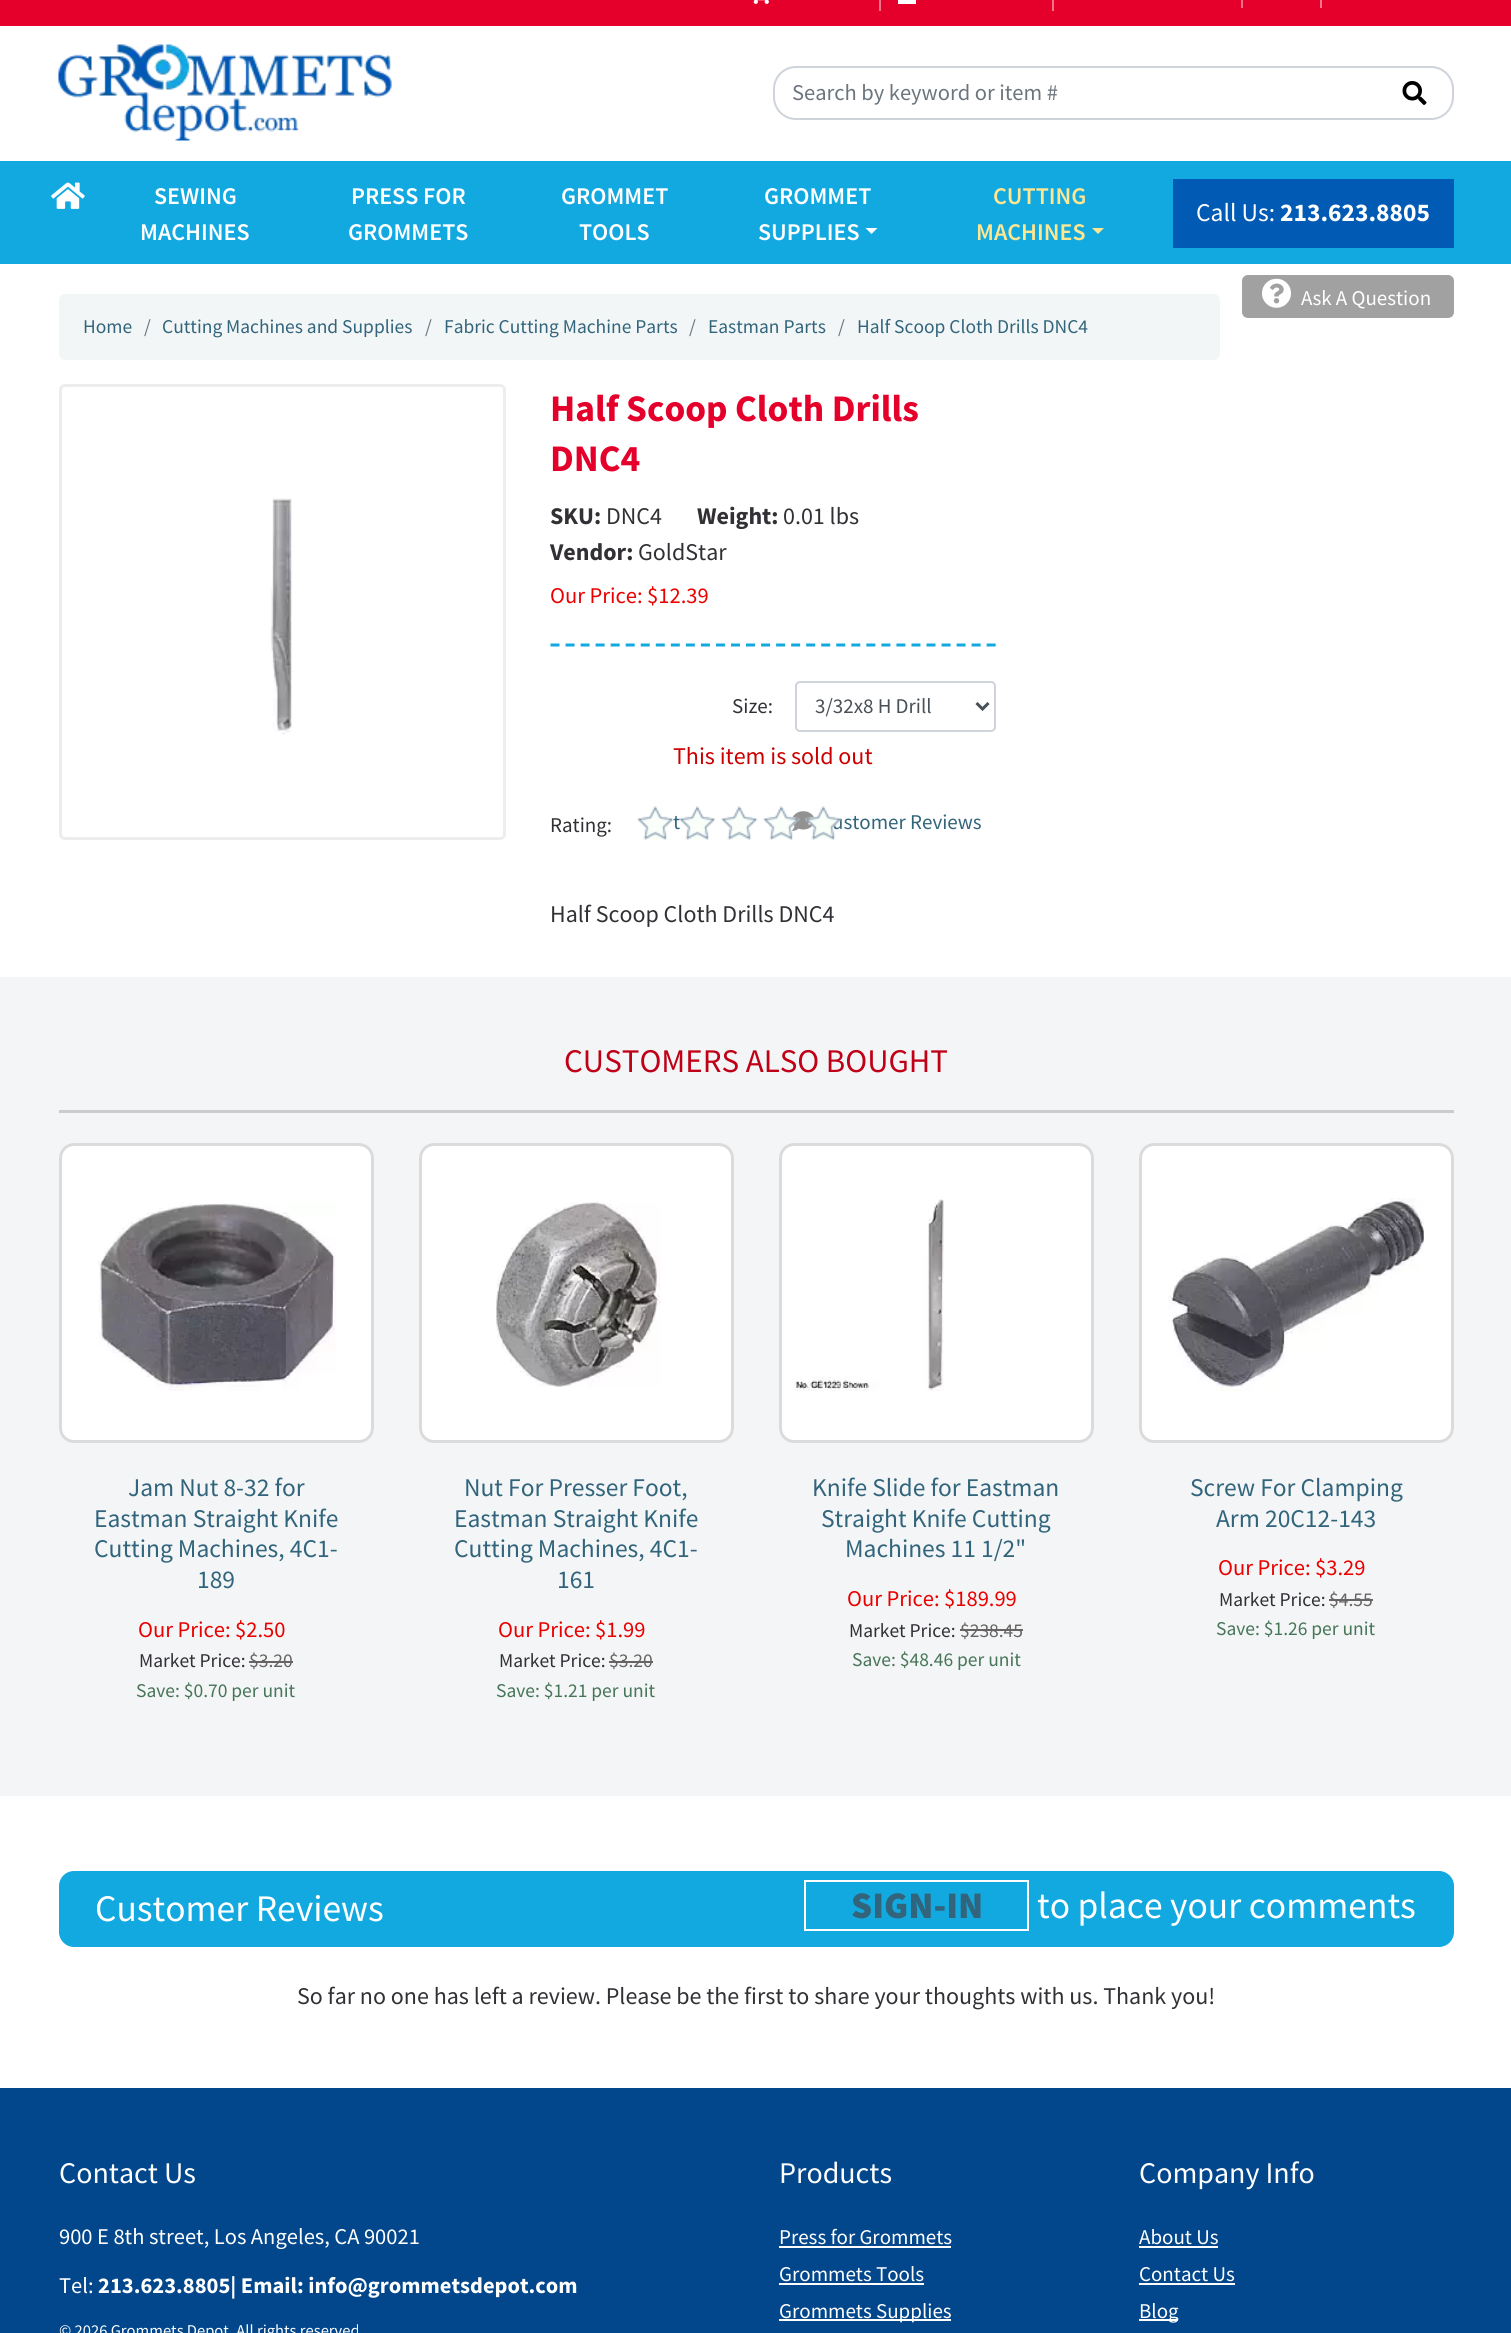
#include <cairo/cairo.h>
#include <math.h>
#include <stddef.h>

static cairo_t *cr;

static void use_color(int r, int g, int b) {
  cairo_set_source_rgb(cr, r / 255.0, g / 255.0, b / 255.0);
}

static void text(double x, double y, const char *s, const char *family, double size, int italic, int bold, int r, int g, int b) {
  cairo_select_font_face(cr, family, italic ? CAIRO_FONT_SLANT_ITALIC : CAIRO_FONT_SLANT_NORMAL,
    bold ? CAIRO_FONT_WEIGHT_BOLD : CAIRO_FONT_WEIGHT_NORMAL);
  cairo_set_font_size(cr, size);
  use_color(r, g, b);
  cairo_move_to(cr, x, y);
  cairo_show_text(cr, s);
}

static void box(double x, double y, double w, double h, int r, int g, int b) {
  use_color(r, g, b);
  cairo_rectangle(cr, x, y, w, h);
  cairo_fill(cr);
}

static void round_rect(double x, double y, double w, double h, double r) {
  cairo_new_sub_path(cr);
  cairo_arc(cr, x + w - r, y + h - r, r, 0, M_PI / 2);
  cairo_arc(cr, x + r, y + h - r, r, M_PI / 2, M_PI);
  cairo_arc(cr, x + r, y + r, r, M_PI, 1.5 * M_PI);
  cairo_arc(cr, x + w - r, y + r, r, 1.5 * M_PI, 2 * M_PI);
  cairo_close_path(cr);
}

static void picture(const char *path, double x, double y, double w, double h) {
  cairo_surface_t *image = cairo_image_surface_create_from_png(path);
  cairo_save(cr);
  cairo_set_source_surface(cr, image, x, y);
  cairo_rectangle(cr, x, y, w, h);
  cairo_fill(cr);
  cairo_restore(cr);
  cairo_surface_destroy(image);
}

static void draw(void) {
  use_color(255, 255, 255);
  cairo_paint(cr);
  box(0, 0, 1511, 26, 229, 0, 43);
  picture("img_01.png", 753, 0, 16, 4);
  box(879, 0, 2, 11, 241, 115, 138);
  box(898, 0, 18, 4, 255, 255, 255);
  box(1052, 0, 2, 11, 241, 115, 138);
  box(1241, 0, 2, 8, 241, 115, 138);
  box(1320, 0, 2, 8, 241, 115, 138);
  picture("img_02.png", 58, 44, 334, 97);
  round_rect(774, 67, 679, 52, 22);
  use_color(206, 212, 218);
  cairo_stroke(cr);
  picture("img_03.png", 1402, 81, 25, 24);
  box(0, 161, 1511, 103, 18, 169, 224);
  picture("img_04.png", 51, 182, 34, 27);
  use_color(255, 255, 255);
  cairo_new_path(cr);
  cairo_move_to(cr, 865.5, 228);
  cairo_line_to(cr, 877.5, 228);
  cairo_line_to(cr, 871.5, 234);
  cairo_close_path(cr);
  cairo_fill(cr);
  use_color(255, 230, 145);
  cairo_new_path(cr);
  cairo_move_to(cr, 1092, 228);
  cairo_line_to(cr, 1104, 228);
  cairo_line_to(cr, 1098, 234);
  cairo_close_path(cr);
  cairo_fill(cr);
  box(1173, 179, 281, 69, 1, 90, 180);
  use_color(161, 161, 161);
  round_rect(1242, 275, 212, 43, 6);
  cairo_fill(cr);
  picture("img_05.png", 1262, 278, 29, 30);
  use_color(243, 246, 247);
  round_rect(59, 294, 1161, 66, 6);
  cairo_fill(cr);
  round_rect(60.5, 385.5, 444, 453, 4.5);
  use_color(237, 237, 237);
  cairo_set_line_width(cr, 3);
  cairo_stroke(cr);
  picture("img_06.png", 270, 498, 22, 237);
  cairo_new_path(cr);
  cairo_move_to(cr, 550.5, 645);
  cairo_line_to(cr, 996, 645);
  use_color(18, 169, 224);
  cairo_set_dash(cr, (double[]){9, 6.04}, 2, 0);
  cairo_stroke(cr);
  round_rect(796, 682, 199, 49, 4);
  use_color(206, 212, 218);
  cairo_set_line_width(cr, 2);
  cairo_set_dash(cr, NULL, 0, 0);
  cairo_stroke(cr);
  cairo_new_path(cr);
  cairo_move_to(cr, 976.5, 703);
  cairo_line_to(cr, 982.5, 709);
  cairo_line_to(cr, 988.5, 703);
  use_color(73, 80, 87);
  cairo_set_line_width(cr, 3);
  cairo_stroke(cr);
  picture("img_09.png", 719, 806, 39, 34);
  picture("img_12.png", 792, 811, 23, 20);
  picture("img_10.png", 763, 806, 37, 34);
  box(0, 977, 1511, 819, 243, 245, 246);
  box(59, 1110, 1395, 3, 204, 204, 204);
  use_color(255, 255, 255);
  round_rect(59, 1143, 315, 300, 15);
  cairo_fill(cr);
  round_rect(60.5, 1144.5, 312, 297, 13.5);
  cairo_set_source_rgba(cr, 0.796, 0.796, 0.796, 0.68);
  cairo_stroke(cr);
  picture("img_13.png", 98, 1203, 238, 188);
  box(249, 1661, 44, 2, 104, 100, 100);
  use_color(255, 255, 255);
  round_rect(419, 1143, 315, 300, 15);
  cairo_fill(cr);
  round_rect(420.5, 1144.5, 312, 297, 13.5);
  cairo_set_source_rgba(cr, 0.796, 0.796, 0.796, 0.68);
  cairo_stroke(cr);
  picture("img_14.png", 496, 1202, 165, 185);
  box(609, 1661, 44, 2, 104, 100, 100);
  use_color(255, 255, 255);
  round_rect(779, 1143, 315, 300, 15);
  cairo_fill(cr);
  round_rect(780.5, 1144.5, 312, 297, 13.5);
  cairo_set_source_rgba(cr, 0.796, 0.796, 0.796, 0.68);
  cairo_stroke(cr);
  picture("img_15.png", 794, 1199, 150, 192);
  box(960, 1629, 63, 2, 104, 100, 100);
  use_color(255, 255, 255);
  round_rect(1139, 1143, 315, 300, 15);
  cairo_fill(cr);
  round_rect(1140.5, 1144.5, 312, 297, 13.5);
  cairo_set_source_rgba(cr, 0.796, 0.796, 0.796, 0.68);
  cairo_stroke(cr);
  picture("img_16.png", 1168, 1198, 256, 193);
  box(1329, 1599, 44, 2, 104, 100, 100);
  use_color(18, 169, 224);
  round_rect(59, 1871, 1395, 76, 15);
  cairo_fill(cr);
  cairo_rectangle(cr, 805, 1881, 223, 49);
  use_color(255, 255, 255);
  cairo_set_line_width(cr, 2);
  cairo_stroke(cr);
  box(0, 2088, 1511, 245, 2, 71, 140);
  box(779, 2246, 172, 2, 255, 255, 255);
  box(779, 2283, 145, 2, 255, 255, 255);
  box(779, 2319, 172, 2, 255, 255, 255);
  box(1139, 2246, 79, 2, 255, 255, 255);
  box(1139, 2283, 96, 2, 255, 255, 255);
  box(1139, 2319, 39, 2, 255, 255, 255);
  text(792, 100, "Search by keyword or item #", "Source Sans Pro", 22.5, 0, 0, 108, 117, 125);
  text(154, 204, "SEWING", "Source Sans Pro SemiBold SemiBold", 24, 0, 0, 255, 255, 255);
  text(140, 240, "MACHINES", "Source Sans Pro SemiBold SemiBold", 24, 0, 0, 255, 255, 255);
  text(351, 204, "PRESS FOR", "Source Sans Pro SemiBold SemiBold", 24, 0, 0, 255, 255, 255);
  text(348, 240, "GROMMETS", "Source Sans Pro SemiBold SemiBold", 24, 0, 0, 255, 255, 255);
  text(561, 204, "GROMMET", "Source Sans Pro SemiBold SemiBold", 24, 0, 0, 255, 255, 255);
  text(579, 240, "TOOLS", "Source Sans Pro SemiBold SemiBold", 24, 0, 0, 255, 255, 255);
  text(764, 204, "GROMMET", "Source Sans Pro SemiBold SemiBold", 24, 0, 0, 255, 255, 255);
  text(758, 240, "SUPPLIES", "Source Sans Pro SemiBold SemiBold", 24, 0, 0, 255, 255, 255);
  text(993, 204, "CUTTING", "Source Sans Pro SemiBold SemiBold", 24, 0, 0, 255, 230, 145);
  text(976, 240, "MACHINES", "Source Sans Pro SemiBold SemiBold", 24, 0, 0, 255, 230, 145);
  text(1196, 221, "Call Us:", "Source Sans Pro", 25.5, 0, 0, 255, 255, 255);
  text(1280, 221, "213.623.8805", "Source Sans Pro", 25.5, 0, 1, 255, 255, 255);
  text(1301, 305, "Ask A Question", "Source Sans Pro", 21, 0, 0, 255, 255, 255);
  text(83, 333, "Home", "Source Sans Pro", 19.5, 0, 0, 50, 101, 124);
  text(144, 333, "/", "Source Sans Pro", 19.5, 0, 0, 108, 117, 125);
  text(162, 333, "Cutting Machines and Supplies", "Source Sans Pro", 19.5, 0, 0, 50, 101, 124);
  text(425, 333, "/", "Source Sans Pro", 19.5, 0, 0, 108, 117, 125);
  text(444, 333, "Fabric Cutting Machine Parts", "Source Sans Pro", 19.5, 0, 0, 50, 101, 124);
  text(689, 333, "/", "Source Sans Pro", 19.5, 0, 0, 108, 117, 125);
  text(708, 333, "Eastman Parts", "Source Sans Pro", 19.5, 0, 0, 50, 101, 124);
  text(838, 333, "/", "Source Sans Pro", 19.5, 0, 0, 108, 117, 125);
  text(857, 333, "Half Scoop Cloth Drills DNC4", "Source Sans Pro", 19.5, 0, 0, 50, 101, 124);
  text(550, 421, "Half Scoop Cloth Drills", "Source Sans Pro", 37.5, 0, 1, 229, 0, 43);
  text(550, 471, "DNC4", "Source Sans Pro", 37.5, 0, 1, 229, 0, 43);
  text(550, 524, "SKU:", "Source Sans Pro", 24, 0, 1, 50, 48, 53);
  text(606, 524, "DNC4", "Source Sans Pro", 24, 0, 0, 50, 48, 53);
  text(697, 524, "Weight:", "Source Sans Pro", 24, 0, 1, 50, 48, 53);
  text(783, 524, "0.01 lbs", "Source Sans Pro", 24, 0, 0, 50, 48, 53);
  text(550, 560, "Vendor:", "Source Sans Pro", 24, 0, 1, 50, 48, 53);
  text(638, 560, "GoldStar", "Source Sans Pro", 24, 0, 0, 50, 48, 53);
  text(550, 603, "Our Price: $12.39", "Source Sans Pro", 22.5, 0, 0, 235, 0, 0);
  text(732, 713, "Size:", "Source Sans Pro", 21, 0, 0, 50, 48, 53);
  text(815, 713, "3/32x8 H Drill", "Source Sans Pro", 21, 0, 0, 73, 80, 87);
  text(673, 764, "This item is sold out", "Source Sans Pro", 24, 0, 0, 204, 0, 0);
  text(550, 832, "Rating:", "Source Sans Pro", 21, 0, 0, 50, 48, 53);
  text(673, 829, "t", "Source Sans Pro", 21, 0, 0, 50, 101, 124);
  picture("img_08.png", 679, 806, 37, 34);
  picture("img_07.png", 637, 806, 39, 34);
  text(832, 829, "ustomer Reviews", "Source Sans Pro", 21, 0, 0, 50, 101, 124);
  picture("img_11.png", 805, 806, 36, 34);
  text(550, 922, "Half Scoop Cloth Drills DNC4", "Source Sans Pro", 24, 0, 0, 50, 48, 53);
  text(564, 1072, "CUSTOMERS ALSO BOUGHT", "Source Sans Pro", 33, 0, 0, 191, 0, 22);
  text(128, 1496, "Jam Nut 8-32 for", "Source Sans Pro", 25.5, 0, 0, 50, 101, 124);
  text(94, 1527, "Eastman Straight Knife", "Source Sans Pro", 25.5, 0, 0, 50, 101, 124);
  text(94, 1557, "Cutting Machines, 4C1-", "Source Sans Pro", 25.5, 0, 0, 50, 101, 124);
  text(197, 1588, "189", "Source Sans Pro", 25.5, 0, 0, 50, 101, 124);
  text(138, 1637, "Our Price: $2.50", "Source Sans Pro", 22.5, 0, 0, 235, 0, 0);
  text(139, 1667, "Market Price:", "Source Sans Pro", 19.5, 0, 0, 50, 48, 53);
  text(249, 1667, "$3.20", "Source Sans Pro", 19.5, 0, 0, 104, 100, 100);
  text(136, 1697, "Save: $0.70 per unit", "Source Sans Pro", 19.5, 0, 0, 71, 117, 88);
  text(464, 1496, "Nut For Presser Foot,", "Source Sans Pro", 25.5, 0, 0, 50, 101, 124);
  text(454, 1527, "Eastman Straight Knife", "Source Sans Pro", 25.5, 0, 0, 50, 101, 124);
  text(454, 1557, "Cutting Machines, 4C1-", "Source Sans Pro", 25.5, 0, 0, 50, 101, 124);
  text(557, 1588, "161", "Source Sans Pro", 25.5, 0, 0, 50, 101, 124);
  text(498, 1637, "Our Price: $1.99", "Source Sans Pro", 22.5, 0, 0, 235, 0, 0);
  text(499, 1667, "Market Price:", "Source Sans Pro", 19.5, 0, 0, 50, 48, 53);
  text(609, 1667, "$3.20", "Source Sans Pro", 19.5, 0, 0, 104, 100, 100);
  text(496, 1697, "Save: $1.21 per unit", "Source Sans Pro", 19.5, 0, 0, 71, 117, 88);
  text(812, 1496, "Knife Slide for Eastman", "Source Sans Pro", 25.5, 0, 0, 50, 101, 124);
  text(821, 1527, "Straight Knife Cutting", "Source Sans Pro", 25.5, 0, 0, 50, 101, 124);
  text(845, 1557, "Machines 11 1/2\"", "Source Sans Pro", 25.5, 0, 0, 50, 101, 124);
  text(847, 1606, "Our Price: $189.99", "Source Sans Pro", 22.5, 0, 0, 235, 0, 0);
  text(849, 1637, "Market Price:", "Source Sans Pro", 19.5, 0, 0, 50, 48, 53);
  text(960, 1637, "$238.45", "Source Sans Pro", 19.5, 0, 0, 104, 100, 100);
  text(852, 1666, "Save: $48.46 per unit", "Source Sans Pro", 19.5, 0, 0, 71, 117, 88);
  text(1190, 1496, "Screw For Clamping", "Source Sans Pro", 25.5, 0, 0, 50, 101, 124);
  text(1216, 1527, "Arm 20C12-143", "Source Sans Pro", 25.5, 0, 0, 50, 101, 124);
  text(1218, 1575, "Our Price: $3.29", "Source Sans Pro", 22.5, 0, 0, 235, 0, 0);
  text(1219, 1606, "Market Price:", "Source Sans Pro", 19.5, 0, 0, 50, 48, 53);
  text(1329, 1606, "$4.55", "Source Sans Pro", 19.5, 0, 0, 104, 100, 100);
  text(1216, 1635, "Save: $1.26 per unit", "Source Sans Pro", 19.5, 0, 0, 71, 117, 88);
  text(95, 1921, "Customer Reviews", "Source Sans Pro", 37.5, 0, 0, 255, 255, 255);
  text(851, 1918, "SIGN-IN", "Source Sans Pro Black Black", 37.5, 0, 0, 50, 101, 124);
  text(1037, 1918, "to place your comments", "Source Sans Pro", 37.5, 0, 0, 255, 255, 255);
  text(297, 2004, "So far no one has left a review. Please be the first to share your thoughts with us. Thank you!", "Source Sans Pro", 24, 0, 0, 50, 48, 53);
  text(59, 2183, "Contact Us", "Source Sans Pro", 30, 0, 0, 255, 255, 255);
  text(59, 2244, "900 E 8th street, Los Angeles, CA 90021", "Source Sans Pro", 22.5, 0, 0, 255, 255, 255);
  text(59, 2293, "Tel:", "Source Sans Pro", 22.5, 0, 0, 255, 255, 255);
  text(98, 2293, "213.623.8805| Email: info@grommetsdepot.com", "Source Sans Pro", 22.5, 0, 1, 255, 255, 255);
  text(59, 2336, "© 2026 Grommets Depot. All rights reserved", "Source Sans Pro", 16.5, 0, 0, 255, 255, 255);
  text(779, 2183, "Products", "Source Sans Pro", 30, 0, 0, 255, 255, 255);
  text(779, 2244, "Press for Grommets", "Source Sans Pro", 21, 0, 0, 255, 255, 255);
  text(779, 2281, "Grommets Tools", "Source Sans Pro", 21, 0, 0, 255, 255, 255);
  text(779, 2318, "Grommets Supplies", "Source Sans Pro", 21, 0, 0, 255, 255, 255);
  text(1139, 2183, "Company Info", "Source Sans Pro", 30, 0, 0, 255, 255, 255);
  text(1139, 2244, "About Us", "Source Sans Pro", 21, 0, 0, 255, 255, 255);
  text(1139, 2281, "Contact Us", "Source Sans Pro", 21, 0, 0, 255, 255, 255);
  text(1139, 2318, "Blog", "Source Sans Pro", 21, 0, 0, 255, 255, 255);
}

int main(void) {
  cairo_surface_t *surface = cairo_image_surface_create(CAIRO_FORMAT_RGB24, 1511, 2333);
  cr = cairo_create(surface);
  cairo_font_options_t *options = cairo_font_options_create();
  cairo_font_options_set_hint_metrics(options, CAIRO_HINT_METRICS_OFF);
  cairo_font_options_set_hint_style(options, CAIRO_HINT_STYLE_NONE);
  cairo_set_font_options(cr, options);
  cairo_set_miter_limit(cr, 4);
  draw();
  cairo_surface_write_to_png(surface, "out.png");
  cairo_font_options_destroy(options);
  cairo_destroy(cr);
  cairo_surface_destroy(surface);
  return 0;
}
